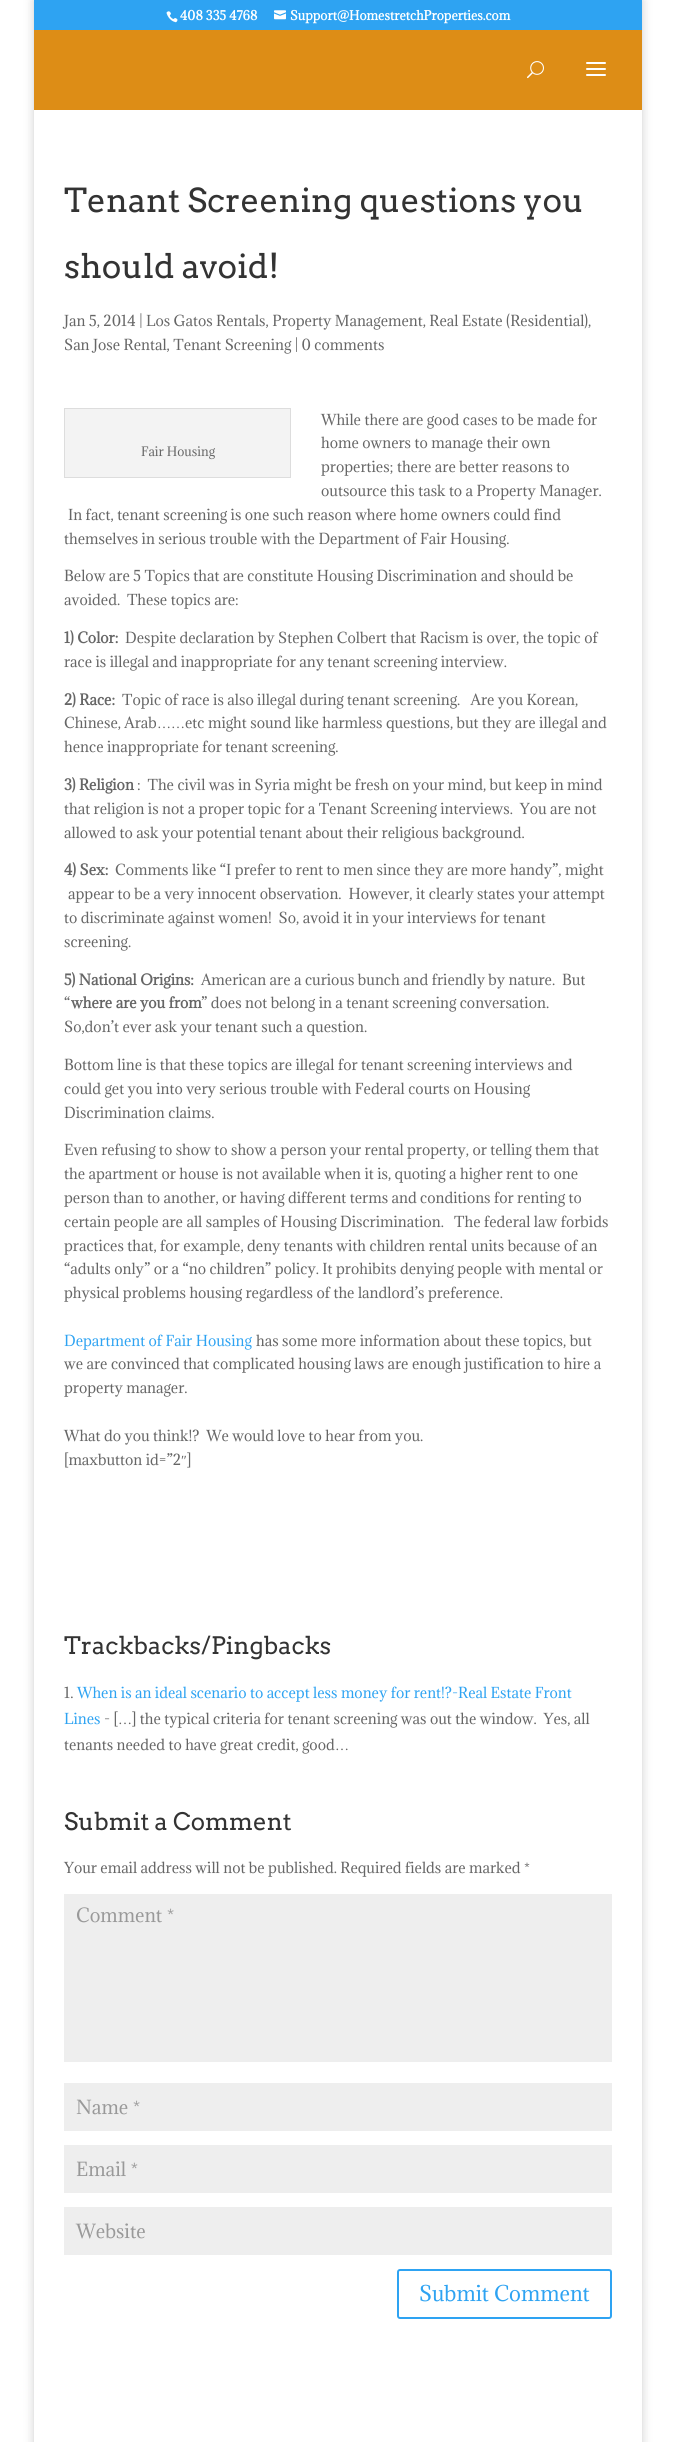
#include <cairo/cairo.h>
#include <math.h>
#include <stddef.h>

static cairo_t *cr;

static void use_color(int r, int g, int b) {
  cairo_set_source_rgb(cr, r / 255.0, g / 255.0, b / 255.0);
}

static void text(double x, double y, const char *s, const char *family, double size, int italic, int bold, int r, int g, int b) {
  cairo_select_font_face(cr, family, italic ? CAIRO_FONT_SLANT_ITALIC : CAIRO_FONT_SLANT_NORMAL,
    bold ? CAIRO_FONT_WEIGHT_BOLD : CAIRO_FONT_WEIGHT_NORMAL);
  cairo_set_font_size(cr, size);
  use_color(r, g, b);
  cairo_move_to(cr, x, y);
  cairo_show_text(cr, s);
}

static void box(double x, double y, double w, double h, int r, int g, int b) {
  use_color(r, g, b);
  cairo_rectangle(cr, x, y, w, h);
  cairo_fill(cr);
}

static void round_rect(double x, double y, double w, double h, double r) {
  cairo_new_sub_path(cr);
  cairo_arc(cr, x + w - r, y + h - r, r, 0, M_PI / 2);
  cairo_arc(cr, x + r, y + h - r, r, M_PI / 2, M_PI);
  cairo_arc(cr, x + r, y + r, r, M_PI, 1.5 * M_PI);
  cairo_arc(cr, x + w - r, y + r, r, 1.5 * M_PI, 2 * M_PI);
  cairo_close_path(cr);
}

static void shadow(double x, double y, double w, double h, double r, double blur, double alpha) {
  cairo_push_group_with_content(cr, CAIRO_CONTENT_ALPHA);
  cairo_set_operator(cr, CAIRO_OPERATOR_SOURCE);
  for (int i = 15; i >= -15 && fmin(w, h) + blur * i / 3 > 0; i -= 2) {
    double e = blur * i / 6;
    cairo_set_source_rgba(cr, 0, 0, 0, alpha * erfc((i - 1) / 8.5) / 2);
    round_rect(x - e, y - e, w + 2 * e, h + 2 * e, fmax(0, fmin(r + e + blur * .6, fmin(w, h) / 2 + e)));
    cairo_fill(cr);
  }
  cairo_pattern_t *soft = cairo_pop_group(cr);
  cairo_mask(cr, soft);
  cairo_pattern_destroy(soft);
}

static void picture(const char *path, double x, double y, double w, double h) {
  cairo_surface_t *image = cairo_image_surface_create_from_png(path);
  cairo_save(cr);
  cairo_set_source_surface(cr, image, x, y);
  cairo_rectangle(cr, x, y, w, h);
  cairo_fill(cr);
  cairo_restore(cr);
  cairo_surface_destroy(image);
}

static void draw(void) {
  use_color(255, 255, 255);
  cairo_paint(cr);
  cairo_save(cr);
  cairo_set_fill_rule(cr, CAIRO_FILL_RULE_EVEN_ODD);
  cairo_new_path(cr);
  cairo_move_to(cr, 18, 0);
  cairo_line_to(cr, 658, 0);
  cairo_line_to(cr, 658, 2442);
  cairo_line_to(cr, 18, 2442);
  cairo_close_path(cr);
  cairo_move_to(cr, 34, 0);
  cairo_line_to(cr, 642, 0);
  cairo_line_to(cr, 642, 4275);
  cairo_line_to(cr, 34, 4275);
  cairo_close_path(cr);
  cairo_clip(cr);
  use_color(0, 0, 0);
  shadow(34, 0, 608, 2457, 0, 5, 0.2);
  cairo_restore(cr);
  box(34, 0, 608, 30, 46, 163, 242);
  picture("img_01.png", 166, 11, 12, 12);
  picture("img_02.png", 274, 10, 12, 10);
  box(34, 30, 608, 80, 221, 141, 22);
  picture("img_03.png", 527, 61, 17, 18);
  picture("img_04.png", 586, 62, 20, 14);
  use_color(243, 243, 243);
  cairo_rectangle(cr, 64.5, 408.5, 226, 69);
  cairo_fill_preserve(cr);
  use_color(221, 221, 221);
  cairo_set_line_width(cr, 1);
  cairo_stroke(cr);
  box(64, 1894, 548, 168, 238, 238, 238);
  box(64, 2083, 548, 48, 238, 238, 238);
  box(64, 2145, 548, 48, 238, 238, 238);
  box(64, 2207, 548, 48, 238, 238, 238);
  round_rect(398, 2270, 213, 48, 2);
  use_color(46, 163, 242);
  cairo_set_line_width(cr, 2);
  cairo_stroke(cr);
  text(180, 20, "408 335 4768", "Adamina", 12, 0, 1, 255, 255, 255);
  text(290, 20, "Support@HomestretchProperties.com", "Adamina", 12, 0, 1, 255, 255, 255);
  text(64, 212, "Tenant Screening questions you", "Arvo", 33, 0, 0, 51, 51, 51);
  text(64, 278, "should avoid!", "Arvo", 33, 0, 0, 51, 51, 51);
  text(64, 326, "Jan 5, 2014 | Los Gatos Rentals, Property Management, Real Estate (Residential),", "Adamina", 14, 0, 0, 102, 102, 102);
  text(64, 350, "San Jose Rental, Tenant Screening | 0 comments", "Adamina", 14, 0, 0, 102, 102, 102);
  text(321, 425, "While there are good cases to be made for", "Adamina", 14, 0, 0, 102, 102, 102);
  text(321, 448, "home owners to manage their own", "Adamina", 14, 0, 0, 102, 102, 102);
  text(321, 472, "properties; there are better reasons to", "Adamina", 14, 0, 0, 102, 102, 102);
  text(321, 496, "outsource this task to a Property Manager.", "Adamina", 14, 0, 0, 102, 102, 102);
  text(68, 520, "In fact, tenant screening is one such reason where home owners could find", "Adamina", 14, 0, 0, 102, 102, 102);
  text(64, 544, "themselves in serious trouble with the Department of Fair Housing.", "Adamina", 14, 0, 0, 102, 102, 102);
  text(141, 456, "Fair Housing", "Adamina", 12, 0, 0, 102, 102, 102);
  text(64, 581, "Below are 5 Topics that are constitute Housing Discrimination and should be", "Adamina", 14, 0, 0, 102, 102, 102);
  text(64, 605, "avoided.  These topics are:", "Adamina", 14, 0, 0, 102, 102, 102);
  text(64, 643, "1) Color:", "Adamina", 14, 0, 1, 102, 102, 102);
  text(125, 643, "Despite declaration by Stephen Colbert that Racism is over, the topic of", "Adamina", 14, 0, 0, 102, 102, 102);
  text(64, 667, "race is illegal and inappropriate for any tenant screening interview.", "Adamina", 14, 0, 0, 102, 102, 102);
  text(64, 705, "2) Race:", "Adamina", 14, 0, 1, 102, 102, 102);
  text(122, 705, "Topic of race is also illegal during tenant screening.   Are you Korean,", "Adamina", 14, 0, 0, 102, 102, 102);
  text(64, 728, "Chinese, Arab", "Adamina", 14, 0, 0, 102, 102, 102);
  text(157, 728, "……", "Liberation Serif", 14, 0, 0, 102, 102, 102);
  text(185, 728, "etc might sound like harmless questions, but they are illegal and", "Adamina", 14, 0, 0, 102, 102, 102);
  text(64, 752, "hence inappropriate for tenant screening.", "Adamina", 14, 0, 0, 102, 102, 102);
  text(64, 790, "3) Religion", "Adamina", 14, 0, 1, 102, 102, 102);
  text(137, 790, ":  The civil was in Syria might be fresh on your mind, but keep in mind", "Adamina", 14, 0, 0, 102, 102, 102);
  text(64, 814, "that religion is not a proper topic for a Tenant Screening interviews.  You are not", "Adamina", 14, 0, 0, 102, 102, 102);
  text(64, 838, "allowed to ask your potential tenant about their religious background.", "Adamina", 14, 0, 0, 102, 102, 102);
  text(64, 875, "4) Sex:", "Adamina", 14, 0, 1, 102, 102, 102);
  text(115, 875, "Comments like “I prefer to rent to men since they are more handy”, might", "Adamina", 14, 0, 0, 102, 102, 102);
  text(68, 899, "appear to be a very innocent observation.  However, it clearly states your attempt", "Adamina", 14, 0, 0, 102, 102, 102);
  text(64, 923, "to discriminate against women!  So, avoid it in your interviews for tenant", "Adamina", 14, 0, 0, 102, 102, 102);
  text(64, 947, "screening.", "Adamina", 14, 0, 0, 102, 102, 102);
  text(64, 985, "5) National Origins:", "Adamina", 14, 0, 1, 102, 102, 102);
  text(201, 985, "American are a curious bunch and friendly by nature.  But", "Adamina", 14, 0, 0, 102, 102, 102);
  text(64, 1008, "“", "Adamina", 14, 0, 0, 102, 102, 102);
  text(71, 1008, "where are you from", "Adamina", 14, 0, 1, 102, 102, 102);
  text(201, 1008, "” does not belong in a tenant screening conversation.", "Adamina", 14, 0, 0, 102, 102, 102);
  text(64, 1032, "So,don’t ever ask your tenant such a question.", "Adamina", 14, 0, 0, 102, 102, 102);
  text(64, 1070, "Bottom line is that these topics are illegal for tenant screening interviews and", "Adamina", 14, 0, 0, 102, 102, 102);
  text(64, 1094, "could get you into very serious trouble with Federal courts on Housing", "Adamina", 14, 0, 0, 102, 102, 102);
  text(64, 1118, "Discrimination claims.", "Adamina", 14, 0, 0, 102, 102, 102);
  text(64, 1155, "Even refusing to show to show a person your rental property, or telling them that", "Adamina", 14, 0, 0, 102, 102, 102);
  text(64, 1179, "the apartment or house is not available when it is, quoting a higher rent to one", "Adamina", 14, 0, 0, 102, 102, 102);
  text(64, 1203, "person than to another, or having different terms and conditions for renting to", "Adamina", 14, 0, 0, 102, 102, 102);
  text(64, 1227, "certain people are all samples of Housing Discrimination.", "Adamina", 14, 0, 0, 102, 102, 102);
  text(454, 1227, "The federal law forbids", "Adamina", 14, 0, 0, 102, 102, 102);
  text(64, 1251, "practices that, for example, deny tenants with children rental units because of an", "Adamina", 14, 0, 0, 102, 102, 102);
  text(64, 1274, "“adults only” or a “no children” policy. It prohibits denying people with mental or", "Adamina", 14, 0, 0, 102, 102, 102);
  text(64, 1298, "physical problems housing regardless of the landlord’s preference.", "Adamina", 14, 0, 0, 102, 102, 102);
  text(64, 1346, "Department of Fair Housing", "Adamina", 14, 0, 0, 46, 163, 242);
  text(256, 1346, "has some more information about these topics, but", "Adamina", 14, 0, 0, 102, 102, 102);
  text(64, 1369, "we are convinced that complicated housing laws are enough justification to hire a", "Adamina", 14, 0, 0, 102, 102, 102);
  text(64, 1393, "property manager.", "Adamina", 14, 0, 0, 102, 102, 102);
  text(64, 1441, "What do you think!?  We would love to hear from you.", "Adamina", 14, 0, 0, 102, 102, 102);
  text(64, 1465, "[maxbutton id=”2", "Adamina", 14, 0, 0, 102, 102, 102);
  text(181, 1465, "″", "Liberation Serif", 14, 0, 0, 102, 102, 102);
  text(187, 1465, "]", "Adamina", 14, 0, 0, 102, 102, 102);
  text(64, 1654, "Trackbacks/Pingbacks", "Arvo", 24, 0, 0, 51, 51, 51);
  text(64, 1698, "1.", "Adamina", 14, 0, 0, 102, 102, 102);
  text(77, 1698, "When is an ideal scenario to accept less money for rent!?-Real Estate Front", "Adamina", 14, 0, 0, 46, 163, 242);
  text(64, 1724, "Lines", "Adamina", 14, 0, 0, 46, 163, 242);
  text(104, 1724, "- [", "Adamina", 14, 0, 0, 102, 102, 102);
  text(118, 1724, "…", "Liberation Serif", 14, 0, 0, 102, 102, 102);
  text(132, 1724, "] the typical criteria for tenant screening was out the window.  Yes, all", "Adamina", 14, 0, 0, 102, 102, 102);
  text(64, 1750, "tenants needed to have great credit, good", "Adamina", 14, 0, 0, 102, 102, 102);
  text(335, 1750, "…", "Liberation Serif", 14, 0, 0, 102, 102, 102);
  text(64, 1830, "Submit a Comment", "Arvo", 24, 0, 0, 51, 51, 51);
  text(64, 1873, "Your email address will not be published. Required fields are marked *", "Adamina", 14, 0, 0, 102, 102, 102);
  text(76, 1922, "Comment *", "Adamina", 18, 0, 0, 153, 153, 153);
  text(76, 2114, "Name *", "Adamina", 18, 0, 0, 153, 153, 153);
  text(76, 2176, "Email *", "Adamina", 18, 0, 0, 153, 153, 153);
  text(76, 2238, "Website", "Adamina", 18, 0, 0, 153, 153, 153);
  text(419, 2301, "Submit Comment", "Adamina", 20, 0, 0, 46, 163, 242);
}

int main(void) {
  cairo_surface_t *surface = cairo_image_surface_create(CAIRO_FORMAT_RGB24, 676, 2442);
  cr = cairo_create(surface);
  cairo_font_options_t *options = cairo_font_options_create();
  cairo_font_options_set_hint_metrics(options, CAIRO_HINT_METRICS_OFF);
  cairo_font_options_set_hint_style(options, CAIRO_HINT_STYLE_NONE);
  cairo_set_font_options(cr, options);
  cairo_set_miter_limit(cr, 4);
  draw();
  cairo_surface_write_to_png(surface, "out.png");
  cairo_font_options_destroy(options);
  cairo_destroy(cr);
  cairo_surface_destroy(surface);
  return 0;
}
